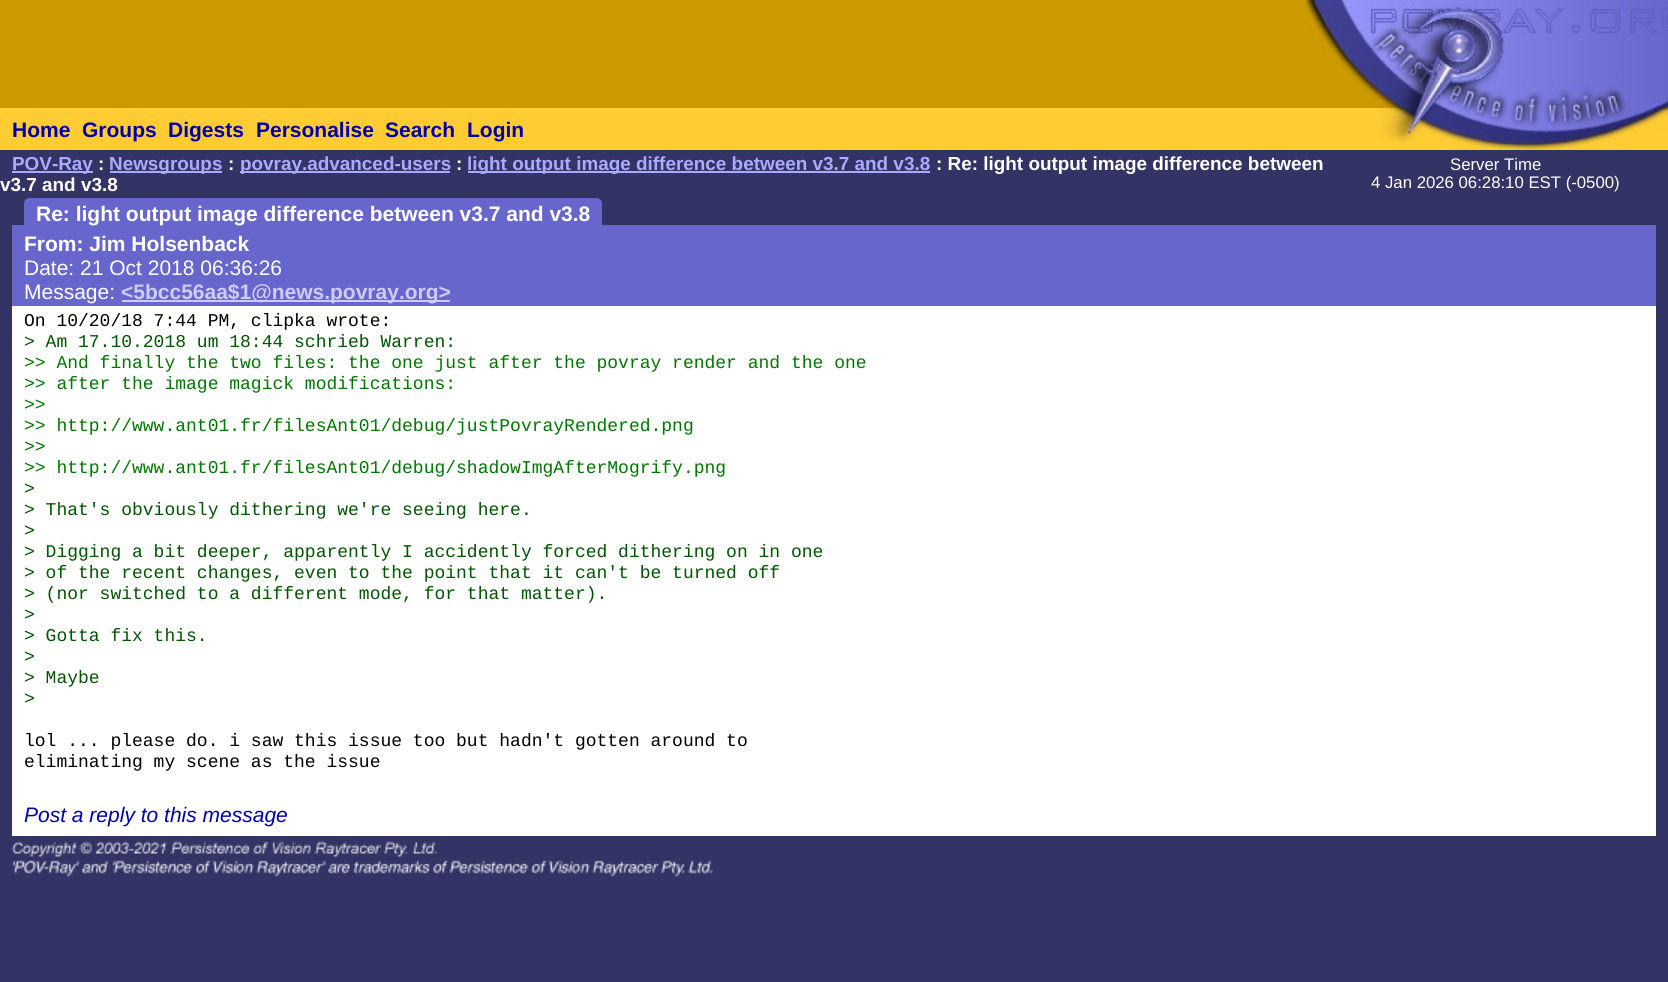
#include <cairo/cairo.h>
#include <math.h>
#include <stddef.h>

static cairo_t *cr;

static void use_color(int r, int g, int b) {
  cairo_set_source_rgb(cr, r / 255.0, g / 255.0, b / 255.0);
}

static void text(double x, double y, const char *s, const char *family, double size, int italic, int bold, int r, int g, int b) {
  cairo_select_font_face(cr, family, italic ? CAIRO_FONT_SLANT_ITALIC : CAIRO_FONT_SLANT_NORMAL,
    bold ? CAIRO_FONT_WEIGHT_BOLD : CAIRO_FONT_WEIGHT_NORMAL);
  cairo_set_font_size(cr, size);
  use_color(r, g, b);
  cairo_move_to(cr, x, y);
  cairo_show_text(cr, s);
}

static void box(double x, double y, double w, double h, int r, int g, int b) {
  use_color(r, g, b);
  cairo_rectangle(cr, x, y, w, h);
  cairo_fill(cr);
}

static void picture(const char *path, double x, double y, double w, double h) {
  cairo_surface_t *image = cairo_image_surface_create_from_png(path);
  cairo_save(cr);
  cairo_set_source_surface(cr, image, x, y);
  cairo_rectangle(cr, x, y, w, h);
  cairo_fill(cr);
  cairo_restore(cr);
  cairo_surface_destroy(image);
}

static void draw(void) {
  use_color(51, 51, 102);
  cairo_paint(cr);
  box(0, 0, 1380, 108, 204, 153, 0);
  picture("img_01.png", 1301, 0, 79, 100);
  picture("img_02.png", 1380, 0, 60, 108);
  picture("img_03.png", 1440, 0, 228, 108);
  box(0, 108, 1380, 42, 255, 204, 51);
  box(1380, 147, 60, 3, 255, 204, 51);
  picture("img_04.png", 1380, 108, 60, 39);
  picture("img_05.png", 1440, 108, 228, 42);
  box(12, 171, 81, 2, 170, 170, 255);
  box(110, 171, 112, 2, 170, 170, 255);
  box(240, 171, 210, 2, 170, 170, 255);
  box(468, 171, 462, 2, 170, 170, 255);
  use_color(102, 102, 204);
  cairo_new_path(cr);
  cairo_move_to(cr, 30, 198);
  cairo_line_to(cr, 596, 198);
  cairo_curve_to(cr, 599.5, 198, 602, 200.5, 602, 204);
  cairo_line_to(cr, 602, 225);
  cairo_line_to(cr, 24, 225);
  cairo_line_to(cr, 24, 204);
  cairo_curve_to(cr, 24, 200.5, 26.5, 198, 30, 198);
  cairo_close_path(cr);
  cairo_fill(cr);
  box(12, 225, 1644, 6, 102, 102, 204);
  box(12, 231, 1644, 75, 102, 102, 204);
  box(122, 300, 328, 2, 204, 204, 255);
  box(12, 306, 1644, 3, 255, 255, 255);
  box(12, 309, 1644, 527, 255, 255, 255);
  picture("img_06.png", 11, 841, 702, 36);
  text(12, 137, "Home", "Liberation Sans", 21, 0, 1, 0, 0, 170);
  text(82, 137, "Groups", "Liberation Sans", 21, 0, 1, 0, 0, 170);
  text(168, 137, "Digests", "Liberation Sans", 21, 0, 1, 0, 0, 170);
  text(256, 137, "Personalise", "Liberation Sans", 21, 0, 1, 0, 0, 170);
  text(385, 137, "Search", "Liberation Sans", 21, 0, 1, 0, 0, 170);
  text(467, 137, "Login", "Liberation Sans", 21, 0, 1, 0, 0, 170);
  text(12, 170, "POV-Ray", "Liberation Sans", 18.9, 0, 1, 170, 170, 255);
  text(98, 170, ":", "Liberation Sans", 18.9, 0, 1, 255, 255, 255);
  text(109, 170, "Newsgroups", "Liberation Sans", 18.9, 0, 1, 170, 170, 255);
  text(228, 170, ":", "Liberation Sans", 18.9, 0, 1, 255, 255, 255);
  text(240, 170, "povray.advanced-users", "Liberation Sans", 18.9, 0, 1, 170, 170, 255);
  text(456, 170, ":", "Liberation Sans", 18.9, 0, 1, 255, 255, 255);
  text(467, 170, "light output image difference between v3.7 and v3.8", "Liberation Sans", 18.9, 0, 1, 170, 170, 255);
  text(936, 170, ": Re: light output image difference between", "Liberation Sans", 18.9, 0, 1, 255, 255, 255);
  text(0, 191, "v3.7 and v3.8", "Liberation Sans", 18.9, 0, 1, 255, 255, 255);
  text(1450, 170, "Server Time", "Liberation Sans", 16.75, 0, 0, 255, 255, 255);
  text(1371, 188, "4 Jan 2026 06:28:10 EST (-0500)", "Liberation Sans", 16.75, 0, 0, 255, 255, 255);
  text(36, 221, "Re: light output image difference between v3.7 and v3.8", "Liberation Sans", 21, 0, 1, 255, 255, 255);
  text(24, 251, "From: Jim Holsenback", "Liberation Sans", 21, 0, 1, 255, 255, 255);
  text(24, 275, "Date: 21 Oct 2018 06:36:26", "Liberation Sans", 21, 0, 0, 255, 255, 255);
  text(24, 299, "Message:", "Liberation Sans", 21, 0, 0, 255, 255, 255);
  text(121, 299, "<5bcc56aa$1@news.povray.org>", "Liberation Sans", 21, 0, 1, 204, 204, 255);
  text(24, 326, "On 10/20/18 7:44 PM, clipka wrote:", "Liberation Mono", 18, 0, 0, 0, 0, 0);
  text(24, 347, "> Am 17.10.2018 um 18:44 schrieb Warren:", "Liberation Mono", 18, 0, 0, 0, 85, 0);
  text(24, 368, ">> And finally the two files: the one just after the povray render and the one", "Liberation Mono", 18, 0, 0, 0, 119, 0);
  text(24, 389, ">> after the image magick modifications:", "Liberation Mono", 18, 0, 0, 0, 119, 0);
  text(24, 410, ">>", "Liberation Mono", 18, 0, 0, 0, 119, 0);
  text(24, 431, ">> http://www.ant01.fr/filesAnt01/debug/justPovrayRendered.png", "Liberation Mono", 18, 0, 0, 0, 119, 0);
  text(24, 452, ">>", "Liberation Mono", 18, 0, 0, 0, 119, 0);
  text(24, 473, ">> http://www.ant01.fr/filesAnt01/debug/shadowImgAfterMogrify.png", "Liberation Mono", 18, 0, 0, 0, 119, 0);
  text(24, 494, ">", "Liberation Mono", 18, 0, 0, 0, 85, 0);
  text(24, 515, "> That's obviously dithering we're seeing here.", "Liberation Mono", 18, 0, 0, 0, 85, 0);
  text(24, 536, ">", "Liberation Mono", 18, 0, 0, 0, 85, 0);
  text(24, 557, "> Digging a bit deeper, apparently I accidently forced dithering on in one", "Liberation Mono", 18, 0, 0, 0, 85, 0);
  text(24, 578, "> of the recent changes, even to the point that it can't be turned off", "Liberation Mono", 18, 0, 0, 0, 85, 0);
  text(24, 599, "> (nor switched to a different mode, for that matter).", "Liberation Mono", 18, 0, 0, 0, 85, 0);
  text(24, 620, ">", "Liberation Mono", 18, 0, 0, 0, 85, 0);
  text(24, 641, "> Gotta fix this.", "Liberation Mono", 18, 0, 0, 0, 85, 0);
  text(24, 662, ">", "Liberation Mono", 18, 0, 0, 0, 85, 0);
  text(24, 683, "> Maybe", "Liberation Mono", 18, 0, 0, 0, 85, 0);
  text(24, 704, ">", "Liberation Mono", 18, 0, 0, 0, 85, 0);
  text(24, 746, "lol ... please do. i saw this issue too but hadn't gotten around to", "Liberation Mono", 18, 0, 0, 0, 0, 0);
  text(24, 767, "eliminating my scene as the issue", "Liberation Mono", 18, 0, 0, 0, 0, 0);
  text(24, 822, "Post a reply to this message", "Liberation Sans", 21, 1, 0, 0, 0, 170);
}

int main(void) {
  cairo_surface_t *surface = cairo_image_surface_create(CAIRO_FORMAT_RGB24, 1668, 982);
  cr = cairo_create(surface);
  cairo_font_options_t *options = cairo_font_options_create();
  cairo_font_options_set_hint_metrics(options, CAIRO_HINT_METRICS_OFF);
  cairo_font_options_set_hint_style(options, CAIRO_HINT_STYLE_NONE);
  cairo_set_font_options(cr, options);
  cairo_set_miter_limit(cr, 4);
  draw();
  cairo_surface_write_to_png(surface, "out.png");
  cairo_font_options_destroy(options);
  cairo_destroy(cr);
  cairo_surface_destroy(surface);
  return 0;
}
